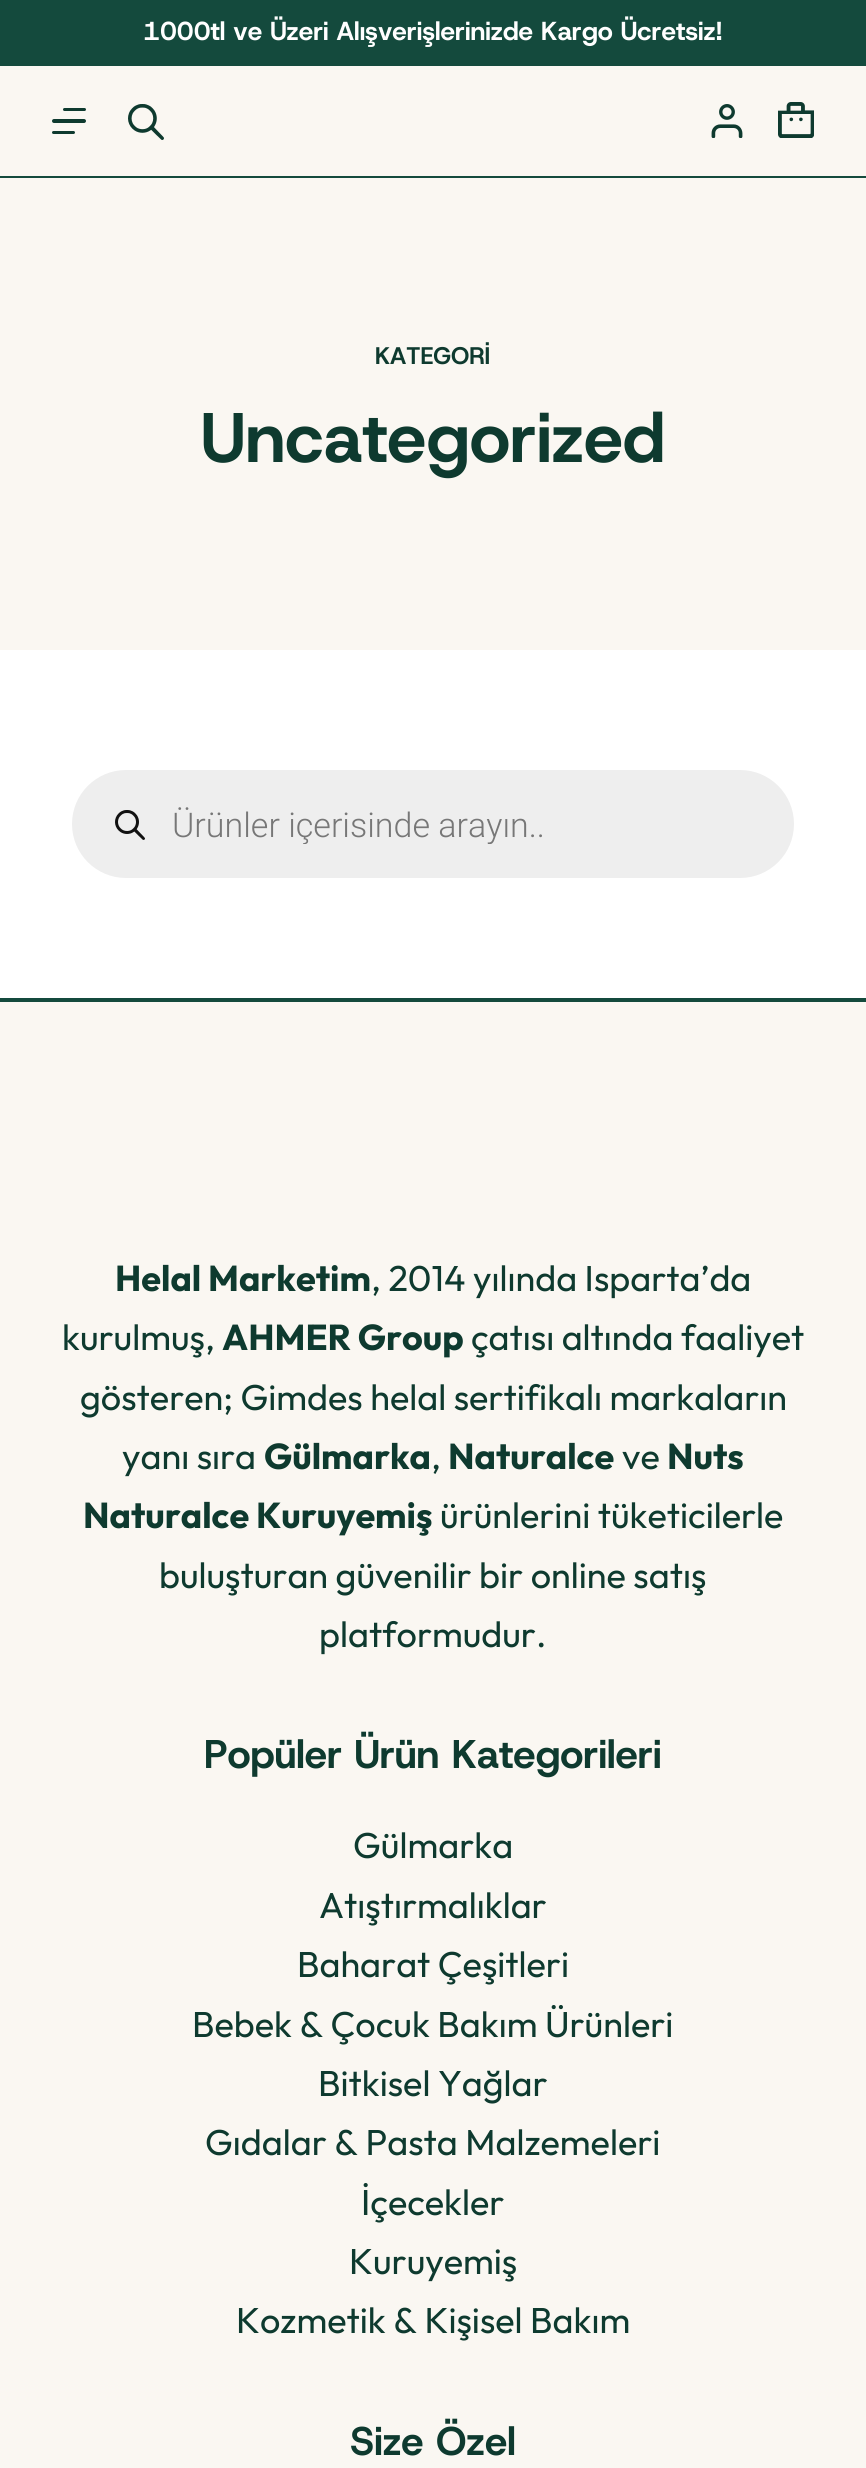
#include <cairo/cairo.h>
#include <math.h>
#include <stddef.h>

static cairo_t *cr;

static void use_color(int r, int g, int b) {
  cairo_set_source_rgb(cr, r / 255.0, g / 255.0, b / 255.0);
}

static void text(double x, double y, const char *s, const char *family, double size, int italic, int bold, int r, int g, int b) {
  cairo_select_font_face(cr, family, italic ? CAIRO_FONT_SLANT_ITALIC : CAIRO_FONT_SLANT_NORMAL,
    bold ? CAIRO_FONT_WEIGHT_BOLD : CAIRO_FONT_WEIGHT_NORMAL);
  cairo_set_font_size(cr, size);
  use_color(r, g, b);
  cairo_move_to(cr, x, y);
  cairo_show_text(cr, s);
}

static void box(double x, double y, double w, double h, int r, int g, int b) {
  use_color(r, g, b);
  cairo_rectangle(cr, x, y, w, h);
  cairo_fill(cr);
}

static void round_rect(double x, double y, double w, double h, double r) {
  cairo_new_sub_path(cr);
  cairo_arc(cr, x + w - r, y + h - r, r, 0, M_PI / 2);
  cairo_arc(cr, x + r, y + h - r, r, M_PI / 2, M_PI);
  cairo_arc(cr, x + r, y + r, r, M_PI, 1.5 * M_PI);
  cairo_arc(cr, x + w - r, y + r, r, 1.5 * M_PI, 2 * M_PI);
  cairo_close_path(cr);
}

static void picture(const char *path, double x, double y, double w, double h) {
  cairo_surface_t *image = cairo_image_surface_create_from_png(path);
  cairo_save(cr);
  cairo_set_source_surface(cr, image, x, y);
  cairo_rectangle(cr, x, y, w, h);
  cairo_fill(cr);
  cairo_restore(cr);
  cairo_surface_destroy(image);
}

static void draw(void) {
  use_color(255, 255, 255);
  cairo_paint(cr);
  box(0, 0, 866, 66, 20, 74, 61);
  box(0, 66, 866, 110, 250, 247, 242);
  box(0, 176, 866, 2, 20, 74, 61);
  use_color(14, 58, 47);
  round_rect(63, 108, 23, 3, 1.5);
  cairo_fill(cr);
  round_rect(52, 119, 34, 4, 2);
  cairo_fill(cr);
  round_rect(52, 131, 23, 3, 1.5);
  cairo_fill(cr);
  picture("img_01.png", 128, 104, 36, 36);
  picture("img_02.png", 711, 104, 32, 34);
  picture("img_03.png", 778, 102, 36, 36);
  box(0, 178, 866, 472, 250, 247, 242);
  use_color(238, 238, 238);
  round_rect(72, 770, 722, 108, 54);
  cairo_fill(cr);
  picture("img_04.png", 115, 810, 30, 30);
  box(0, 1002, 866, 1466, 250, 247, 242);
  box(0, 998, 866, 4, 20, 74, 61);
  text(143, 40, "1000tl ve Üzeri Alışverişlerinizde Kargo Ücretsiz!", "Host Grotesk", 26, 0, 1, 255, 255, 255);
  text(375, 364, "KATEGORİ", "Host Grotesk", 24, 0, 1, 14, 58, 47);
  text(201, 462, "Uncategorized", "Host Grotesk", 70, 0, 1, 14, 58, 47);
  cairo_save(cr);
  cairo_rectangle(cr, 172, 804, 570, 40);
  cairo_clip(cr);
  text(172, 837, "Ürünler içerisinde arayın..", "Roboto Light", 34, 0, 0, 119, 119, 119);
  cairo_restore(cr);
  text(115, 1291, "Helal Marketim", "Outfit", 36, 0, 1, 14, 58, 47);
  text(371, 1291, ", 2014 yılında Isparta’da", "Outfit", 36, 0, 0, 14, 58, 47);
  text(62, 1350, "kurulmuş,", "Outfit", 36, 0, 0, 14, 58, 47);
  text(222, 1350, "AHMER Group", "Outfit", 36, 0, 1, 14, 58, 47);
  text(471, 1350, "çatısı altında faaliyet", "Outfit", 36, 0, 0, 14, 58, 47);
  text(80, 1410, "gösteren; Gimdes helal sertifikalı markaların", "Outfit", 36, 0, 0, 14, 58, 47);
  text(122, 1469, "yanı sıra", "Outfit", 36, 0, 0, 14, 58, 47);
  text(264, 1469, "Gülmarka", "Outfit", 36, 0, 1, 14, 58, 47);
  text(431, 1469, ",", "Outfit", 36, 0, 0, 14, 58, 47);
  text(448, 1469, "Naturalce", "Outfit", 36, 0, 1, 14, 58, 47);
  text(622, 1469, "ve", "Outfit", 36, 0, 0, 14, 58, 47);
  text(667, 1469, "Nuts", "Outfit", 36, 0, 1, 14, 58, 47);
  text(83, 1528, "Naturalce Kuruyemiş", "Outfit", 36, 0, 1, 14, 58, 47);
  text(440, 1528, "ürünlerini tüketicilerle", "Outfit", 36, 0, 0, 14, 58, 47);
  text(159, 1588, "buluşturan güvenilir bir online satış", "Outfit", 36, 0, 0, 14, 58, 47);
  text(319, 1647, "platformudur.", "Outfit", 36, 0, 0, 14, 58, 47);
  text(204, 1768, "Popüler Ürün Kategorileri", "Host Grotesk", 40, 0, 1, 14, 58, 47);
  text(353, 1858, "Gülmarka", "Outfit", 36, 0, 0, 14, 58, 47);
  text(319, 1918, "Atıştırmalıklar", "Outfit", 36, 0, 0, 14, 58, 47);
  text(297, 1977, "Baharat Çeşitleri", "Outfit", 36, 0, 0, 14, 58, 47);
  text(192, 2037, "Bebek & Çocuk Bakım Ürünleri", "Outfit", 36, 0, 0, 14, 58, 47);
  text(318, 2096, "Bitkisel Yağlar", "Outfit", 36, 0, 0, 14, 58, 47);
  text(205, 2155, "Gıdalar & Pasta Malzemeleri", "Outfit", 36, 0, 0, 14, 58, 47);
  text(361, 2215, "İçecekler", "Outfit", 36, 0, 0, 14, 58, 47);
  text(349, 2274, "Kuruyemiş", "Outfit", 36, 0, 0, 14, 58, 47);
  text(236, 2333, "Kozmetik & Kişisel Bakım", "Outfit", 36, 0, 0, 14, 58, 47);
  text(350, 2455, "Size Özel", "Host Grotesk", 40, 0, 1, 14, 58, 47);
}

int main(void) {
  cairo_surface_t *surface = cairo_image_surface_create(CAIRO_FORMAT_RGB24, 866, 2468);
  cr = cairo_create(surface);
  cairo_font_options_t *options = cairo_font_options_create();
  cairo_font_options_set_hint_metrics(options, CAIRO_HINT_METRICS_OFF);
  cairo_font_options_set_hint_style(options, CAIRO_HINT_STYLE_NONE);
  cairo_set_font_options(cr, options);
  cairo_set_miter_limit(cr, 4);
  draw();
  cairo_surface_write_to_png(surface, "out.png");
  cairo_font_options_destroy(options);
  cairo_destroy(cr);
  cairo_surface_destroy(surface);
  return 0;
}
